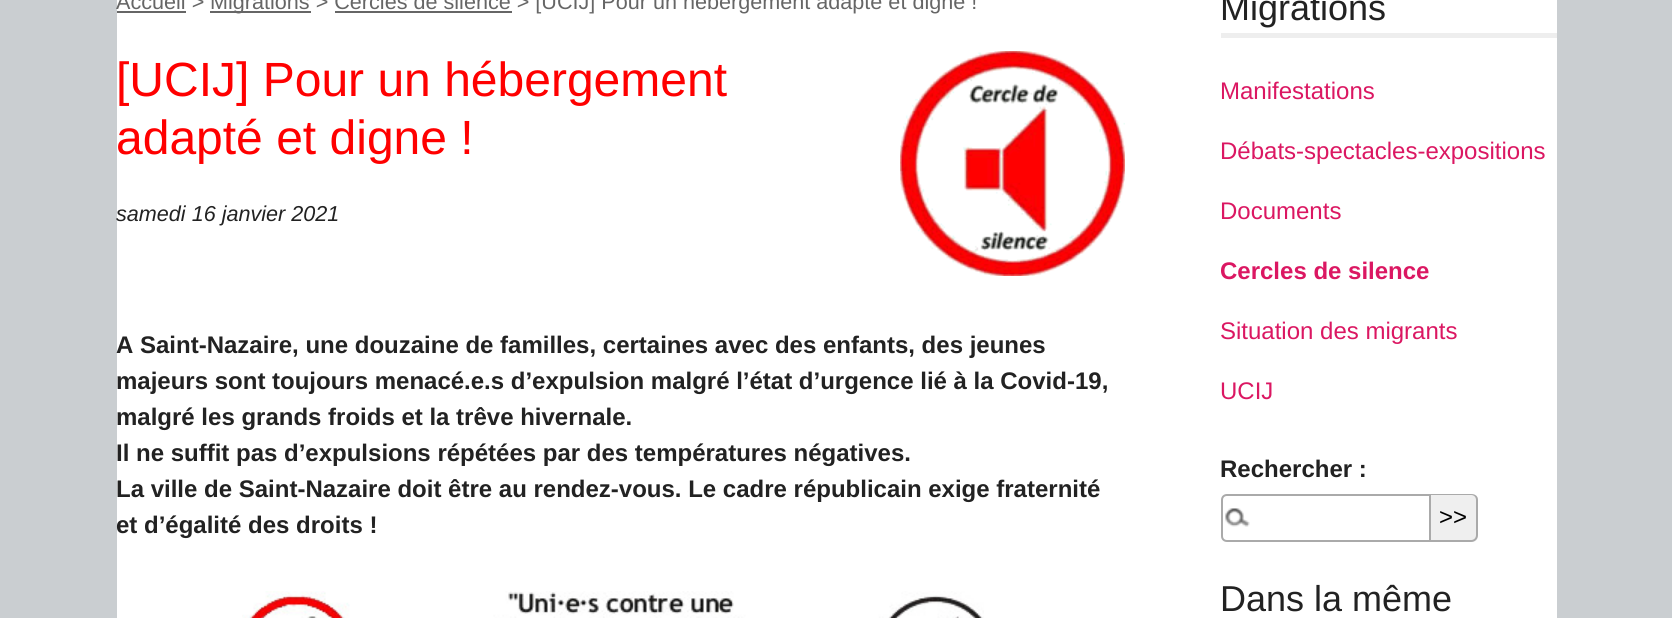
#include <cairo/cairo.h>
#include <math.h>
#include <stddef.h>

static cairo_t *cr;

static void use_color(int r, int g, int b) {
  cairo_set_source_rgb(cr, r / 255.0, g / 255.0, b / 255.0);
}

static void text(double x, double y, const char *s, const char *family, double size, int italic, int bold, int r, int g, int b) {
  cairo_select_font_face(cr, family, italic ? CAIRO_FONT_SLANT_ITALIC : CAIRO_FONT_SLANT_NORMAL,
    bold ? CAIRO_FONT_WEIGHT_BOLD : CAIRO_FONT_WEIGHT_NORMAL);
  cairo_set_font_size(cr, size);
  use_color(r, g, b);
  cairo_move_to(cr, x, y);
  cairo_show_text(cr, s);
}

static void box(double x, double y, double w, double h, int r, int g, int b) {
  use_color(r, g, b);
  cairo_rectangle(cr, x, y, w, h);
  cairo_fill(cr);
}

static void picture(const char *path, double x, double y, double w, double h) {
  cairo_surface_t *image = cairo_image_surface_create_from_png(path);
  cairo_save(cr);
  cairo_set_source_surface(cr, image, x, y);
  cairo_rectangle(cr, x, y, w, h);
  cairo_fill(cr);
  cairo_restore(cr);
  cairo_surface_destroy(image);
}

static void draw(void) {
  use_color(202, 206, 209);
  cairo_paint(cr);
  box(117, 0, 1440, 618, 255, 255, 255);
  box(117, 11, 69, 2, 102, 102, 102);
  box(210, 11, 101, 2, 102, 102, 102);
  box(335, 11, 177, 2, 102, 102, 102);
  picture("img_01.png", 900, 51, 225, 225);
  picture("img_02.png", 242, 591, 742, 27);
  box(1221, 33, 336, 5, 238, 238, 238);
  picture("img_03.png", 1225, 508, 25, 19);
  cairo_new_path(cr);
  cairo_move_to(cr, 1227, 495);
  cairo_line_to(cr, 1430, 495);
  cairo_line_to(cr, 1430, 541);
  cairo_line_to(cr, 1227, 541);
  cairo_curve_to(cr, 1224, 541, 1222, 539, 1222, 536);
  cairo_line_to(cr, 1222, 500);
  cairo_curve_to(cr, 1222, 497, 1224, 495, 1227, 495);
  cairo_close_path(cr);
  use_color(170, 170, 170);
  cairo_stroke(cr);
  use_color(239, 239, 239);
  cairo_new_path(cr);
  cairo_move_to(cr, 1431, 494);
  cairo_line_to(cr, 1472, 494);
  cairo_curve_to(cr, 1475.5, 494, 1478, 496.5, 1478, 500);
  cairo_line_to(cr, 1478, 536);
  cairo_curve_to(cr, 1478, 539.5, 1475.5, 542, 1472, 542);
  cairo_line_to(cr, 1431, 542);
  cairo_close_path(cr);
  cairo_fill(cr);
  use_color(170, 170, 170);
  cairo_set_fill_rule(cr, CAIRO_FILL_RULE_EVEN_ODD);
  cairo_new_path(cr);
  cairo_move_to(cr, 1431, 494);
  cairo_line_to(cr, 1471, 494);
  cairo_curve_to(cr, 1475, 494, 1478, 496, 1478, 500);
  cairo_line_to(cr, 1478, 535);
  cairo_curve_to(cr, 1478, 539, 1475, 542, 1471, 542);
  cairo_line_to(cr, 1431, 542);
  cairo_close_path(cr);
  cairo_move_to(cr, 1431, 495);
  cairo_line_to(cr, 1471, 495);
  cairo_curve_to(cr, 1474, 495, 1476, 497, 1476, 500);
  cairo_line_to(cr, 1476, 535);
  cairo_curve_to(cr, 1476, 538, 1474, 540, 1471, 540);
  cairo_line_to(cr, 1431, 540);
  cairo_close_path(cr);
  cairo_fill(cr);
  text(116, 9, "Accueil >", "Liberation Sans", 21.6, 0, 0, 102, 102, 102);
  text(210, 9, "Migrations > Cercles de silence > [UCIJ] Pour un hébergement adapté et digne !", "Liberation Sans", 21.6, 0, 0, 102, 102, 102);
  text(116, 96, "[UCIJ] Pour un hébergement", "Liberation Sans", 48, 0, 0, 255, 0, 0);
  text(116, 154, "adapté et digne !", "Liberation Sans", 48, 0, 0, 255, 0, 0);
  text(116, 221, "samedi 16 janvier 2021", "Liberation Sans", 21.6, 1, 0, 34, 34, 34);
  text(116, 353, "A Saint-Nazaire, une douzaine de familles, certaines avec des enfants, des jeunes", "Liberation Sans", 24, 0, 1, 34, 34, 34);
  text(116, 389, "majeurs sont toujours menacé.e.s d’expulsion malgré l’état d’urgence lié à la Covid-19,", "Liberation Sans", 24, 0, 1, 34, 34, 34);
  text(116, 425, "malgré les grands froids et la trêve hivernale.", "Liberation Sans", 24, 0, 1, 34, 34, 34);
  text(116, 461, "Il ne suffit pas d’expulsions répétées par des températures négatives.", "Liberation Sans", 24, 0, 1, 34, 34, 34);
  text(116, 497, "La ville de Saint-Nazaire doit être au rendez-vous. Le cadre républicain exige fraternité", "Liberation Sans", 24, 0, 1, 34, 34, 34);
  text(116, 533, "et d’égalité des droits !", "Liberation Sans", 24, 0, 1, 34, 34, 34);
  text(1220, 20, "Migrations", "Liberation Sans", 36, 0, 0, 34, 34, 34);
  text(1220, 99, "Manifestations", "Liberation Sans", 24, 0, 0, 219, 23, 98);
  text(1220, 159, "Débats-spectacles-expositions", "Liberation Sans", 24, 0, 0, 219, 23, 98);
  text(1220, 219, "Documents", "Liberation Sans", 24, 0, 0, 219, 23, 98);
  text(1220, 279, "Cercles de silence", "Liberation Sans", 24, 0, 1, 219, 23, 98);
  text(1220, 339, "Situation des migrants", "Liberation Sans", 24, 0, 0, 219, 23, 98);
  text(1220, 399, "UCIJ", "Liberation Sans", 24, 0, 0, 219, 23, 98);
  text(1220, 477, "Rechercher :", "Liberation Sans", 24, 0, 1, 34, 34, 34);
  text(1439, 525, ">>", "Liberation Sans", 24, 0, 0, 0, 0, 0);
  text(1220, 611, "Dans la même", "Liberation Sans", 36, 0, 0, 34, 34, 34);
}

int main(void) {
  cairo_surface_t *surface = cairo_image_surface_create(CAIRO_FORMAT_RGB24, 1672, 618);
  cr = cairo_create(surface);
  cairo_font_options_t *options = cairo_font_options_create();
  cairo_font_options_set_hint_metrics(options, CAIRO_HINT_METRICS_OFF);
  cairo_font_options_set_hint_style(options, CAIRO_HINT_STYLE_NONE);
  cairo_set_font_options(cr, options);
  cairo_set_miter_limit(cr, 4);
  draw();
  cairo_surface_write_to_png(surface, "out.png");
  cairo_font_options_destroy(options);
  cairo_destroy(cr);
  cairo_surface_destroy(surface);
  return 0;
}
